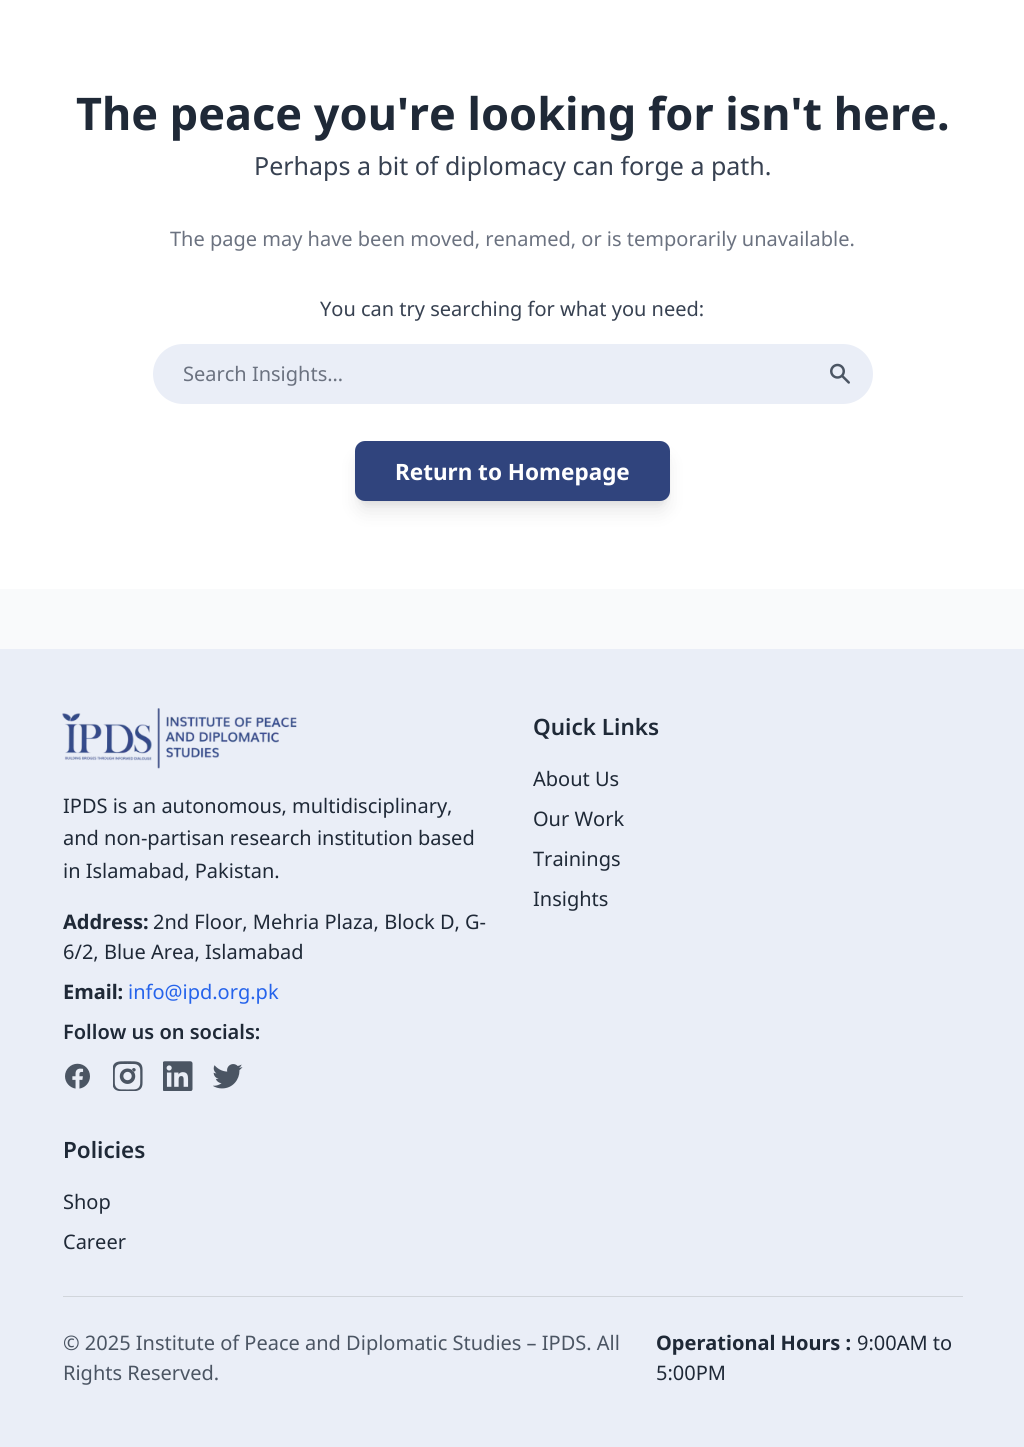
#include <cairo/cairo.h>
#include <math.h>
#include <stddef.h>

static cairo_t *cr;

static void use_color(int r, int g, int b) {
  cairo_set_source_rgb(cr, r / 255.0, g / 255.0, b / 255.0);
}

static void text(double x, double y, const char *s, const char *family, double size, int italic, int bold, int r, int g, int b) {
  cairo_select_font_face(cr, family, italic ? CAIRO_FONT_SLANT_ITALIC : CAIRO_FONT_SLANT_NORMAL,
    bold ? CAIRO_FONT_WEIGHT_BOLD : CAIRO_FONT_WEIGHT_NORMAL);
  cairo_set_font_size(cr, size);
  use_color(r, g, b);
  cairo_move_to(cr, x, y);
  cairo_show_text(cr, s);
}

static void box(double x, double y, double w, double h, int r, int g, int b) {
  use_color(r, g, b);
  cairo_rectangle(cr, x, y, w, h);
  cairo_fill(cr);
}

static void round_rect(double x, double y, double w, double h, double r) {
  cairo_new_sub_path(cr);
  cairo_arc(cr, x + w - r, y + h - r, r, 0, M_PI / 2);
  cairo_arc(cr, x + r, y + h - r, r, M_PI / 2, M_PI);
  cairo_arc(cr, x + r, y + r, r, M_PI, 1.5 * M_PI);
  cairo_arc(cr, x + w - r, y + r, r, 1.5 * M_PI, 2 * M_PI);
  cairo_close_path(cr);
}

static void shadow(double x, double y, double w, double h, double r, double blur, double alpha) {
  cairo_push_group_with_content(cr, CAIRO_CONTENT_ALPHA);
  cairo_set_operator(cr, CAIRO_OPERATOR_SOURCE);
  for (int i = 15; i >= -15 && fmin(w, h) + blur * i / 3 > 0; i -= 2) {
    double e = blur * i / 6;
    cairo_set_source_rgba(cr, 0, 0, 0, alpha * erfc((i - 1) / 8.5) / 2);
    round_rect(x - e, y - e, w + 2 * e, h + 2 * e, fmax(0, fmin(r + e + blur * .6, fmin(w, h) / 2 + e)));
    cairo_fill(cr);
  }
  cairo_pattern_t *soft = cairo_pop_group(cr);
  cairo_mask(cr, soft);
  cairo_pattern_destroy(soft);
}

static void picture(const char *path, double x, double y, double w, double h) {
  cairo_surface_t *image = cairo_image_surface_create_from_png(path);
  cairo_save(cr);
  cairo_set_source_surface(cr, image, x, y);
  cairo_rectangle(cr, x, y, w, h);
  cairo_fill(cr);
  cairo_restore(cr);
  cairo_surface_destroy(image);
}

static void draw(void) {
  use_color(249, 250, 251);
  cairo_paint(cr);
  box(0, 0, 1024, 589, 255, 255, 255);
  use_color(234, 238, 247);
  round_rect(153, 344, 720, 60, 30);
  cairo_fill(cr);
  picture("img_01.png", 830, 363, 20, 21);
  use_color(0, 0, 0);
  shadow(360, 451, 305, 50, 5, 4, 0.1);
  shadow(359, 458, 307, 52, 6, 9.5, 0.1);
  use_color(48, 68, 125);
  round_rect(355, 441, 315, 60, 10);
  cairo_fill(cr);
  box(0, 649, 1024, 798, 234, 238, 247);
  picture("img_02.png", 62, 708, 235, 61);
  picture("img_03.png", 65, 1063, 25, 26);
  picture("img_04.png", 113, 1061, 30, 30);
  picture("img_05.png", 163, 1061, 30, 30);
  picture("img_06.png", 213, 1064, 30, 25);
  box(63, 1296, 900, 1, 209, 213, 219);
  text(76, 130, "The peace you're looking for isn't here.", "Noto Sans", 45, 0, 1, 31, 41, 55);
  text(254, 175, "Perhaps a bit of diplomacy can forge a path.", "Noto Sans", 25, 0, 0, 55, 65, 81);
  text(170, 246, "The page may have been moved, renamed, or is temporarily unavailable.", "Noto Sans", 20, 0, 0, 107, 114, 128);
  text(320, 316, "You can try searching for what you need:", "Noto Sans", 20, 0, 0, 55, 65, 81);
  text(183, 381, "Search Insights…", "Noto Sans", 20, 0, 0, 107, 114, 128);
  text(395, 480, "Return to Homepage", "Noto Sans", 22.5, 0, 1, 255, 255, 255);
  text(63, 813, "IPDS is an autonomous, multidisciplinary,", "Noto Sans", 20, 0, 0, 31, 41, 55);
  text(63, 845, "and non-partisan research institution based", "Noto Sans", 20, 0, 0, 31, 41, 55);
  text(63, 878, "in Islamabad, Pakistan.", "Noto Sans", 20, 0, 0, 31, 41, 55);
  text(63, 929, "Address:", "Noto Sans", 20, 0, 1, 31, 41, 55);
  text(153, 929, "2nd Floor, Mehria Plaza, Block D, G-", "Noto Sans", 20, 0, 0, 31, 41, 55);
  text(63, 959, "6/2, Blue Area, Islamabad", "Noto Sans", 20, 0, 0, 31, 41, 55);
  text(63, 999, "Email:", "Noto Sans", 20, 0, 1, 31, 41, 55);
  text(128, 999, "info@ipd.org.pk", "Noto Sans", 20, 0, 0, 37, 99, 235);
  text(63, 1039, "Follow us on socials:", "Noto Sans SemiBold", 20, 0, 0, 31, 41, 55);
  text(533, 735, "Quick Links", "Noto Sans SemiBold", 22.5, 0, 0, 31, 41, 55);
  text(533, 786, "About Us", "Noto Sans", 20, 0, 0, 31, 41, 55);
  text(533, 826, "Our Work", "Noto Sans", 20, 0, 0, 31, 41, 55);
  text(533, 866, "Trainings", "Noto Sans", 20, 0, 0, 31, 41, 55);
  text(533, 906, "Insights", "Noto Sans", 20, 0, 0, 31, 41, 55);
  text(63, 1158, "Policies", "Noto Sans SemiBold", 22.5, 0, 0, 31, 41, 55);
  text(63, 1209, "Shop", "Noto Sans", 20, 0, 0, 31, 41, 55);
  text(63, 1249, "Career", "Noto Sans", 20, 0, 0, 31, 41, 55);
  text(63, 1350, "© 2025 Institute of Peace and Diplomatic Studies – IPDS. All", "Noto Sans", 20, 0, 0, 75, 85, 99);
  text(63, 1380, "Rights Reserved.", "Noto Sans", 20, 0, 0, 75, 85, 99);
  text(656, 1350, "Operational Hours :", "Noto Sans", 20, 0, 1, 31, 41, 55);
  text(857, 1350, "9:00AM to", "Noto Sans", 20, 0, 0, 31, 41, 55);
  text(656, 1380, "5:00PM", "Noto Sans", 20, 0, 0, 31, 41, 55);
}

int main(void) {
  cairo_surface_t *surface = cairo_image_surface_create(CAIRO_FORMAT_RGB24, 1024, 1447);
  cr = cairo_create(surface);
  cairo_font_options_t *options = cairo_font_options_create();
  cairo_font_options_set_hint_metrics(options, CAIRO_HINT_METRICS_OFF);
  cairo_font_options_set_hint_style(options, CAIRO_HINT_STYLE_NONE);
  cairo_set_font_options(cr, options);
  cairo_set_miter_limit(cr, 4);
  draw();
  cairo_surface_write_to_png(surface, "out.png");
  cairo_font_options_destroy(options);
  cairo_destroy(cr);
  cairo_surface_destroy(surface);
  return 0;
}
